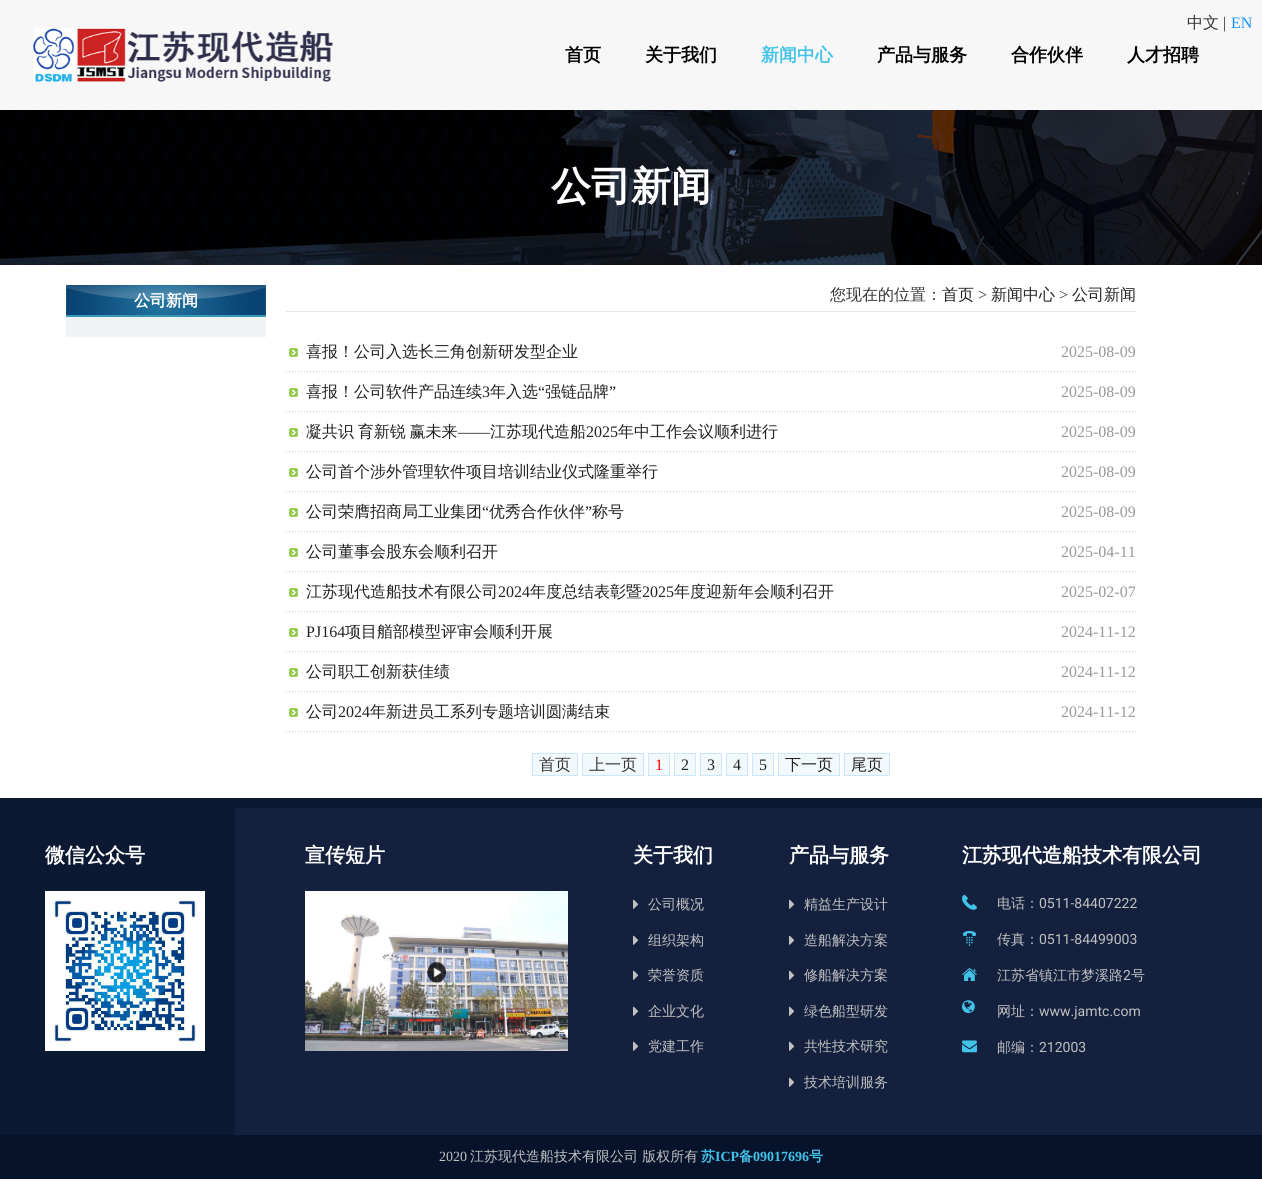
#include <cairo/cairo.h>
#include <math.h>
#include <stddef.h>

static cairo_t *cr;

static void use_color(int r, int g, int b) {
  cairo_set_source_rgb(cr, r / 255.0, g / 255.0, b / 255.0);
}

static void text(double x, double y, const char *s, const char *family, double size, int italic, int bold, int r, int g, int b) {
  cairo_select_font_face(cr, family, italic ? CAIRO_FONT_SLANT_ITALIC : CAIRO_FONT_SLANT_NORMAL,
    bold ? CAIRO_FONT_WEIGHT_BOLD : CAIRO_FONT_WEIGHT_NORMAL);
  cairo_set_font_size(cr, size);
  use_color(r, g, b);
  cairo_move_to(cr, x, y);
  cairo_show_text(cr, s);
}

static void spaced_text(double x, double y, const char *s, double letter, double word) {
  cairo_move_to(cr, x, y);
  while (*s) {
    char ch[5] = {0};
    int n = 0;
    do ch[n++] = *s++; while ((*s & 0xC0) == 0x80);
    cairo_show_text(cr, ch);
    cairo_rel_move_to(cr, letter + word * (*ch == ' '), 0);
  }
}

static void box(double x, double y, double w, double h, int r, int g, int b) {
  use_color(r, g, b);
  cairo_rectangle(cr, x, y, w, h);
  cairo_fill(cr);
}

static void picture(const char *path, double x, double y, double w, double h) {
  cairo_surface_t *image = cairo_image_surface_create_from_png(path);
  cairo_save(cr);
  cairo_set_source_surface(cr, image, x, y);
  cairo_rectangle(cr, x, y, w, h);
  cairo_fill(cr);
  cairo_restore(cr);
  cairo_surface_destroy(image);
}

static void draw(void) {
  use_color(255, 255, 255);
  cairo_paint(cr);
  box(0, 0, 1262, 110, 247, 247, 247);
  picture("img_01.png", 32, 28, 301, 54);
  picture("img_02.png", 0, 110, 1262, 155);
  box(66, 317, 200, 20, 239, 243, 245);
  picture("img_03.png", 66, 285, 200, 32);
  box(286, 311, 850, 1, 230, 230, 230);
  picture("img_04.png", 286, 348, 850, 24);
  picture("img_04.png", 286, 388, 850, 24);
  picture("img_04.png", 286, 428, 850, 24);
  picture("img_04.png", 286, 468, 850, 24);
  picture("img_04.png", 286, 508, 850, 24);
  picture("img_04.png", 286, 548, 850, 24);
  picture("img_04.png", 286, 588, 850, 24);
  picture("img_04.png", 286, 628, 850, 24);
  picture("img_04.png", 286, 668, 850, 24);
  picture("img_04.png", 286, 708, 850, 24);
  use_color(242, 249, 253);
  cairo_rectangle(cr, 532.5, 753.5, 45, 22);
  cairo_fill_preserve(cr);
  use_color(205, 230, 255);
  cairo_set_line_width(cr, 1);
  cairo_stroke(cr);
  use_color(242, 249, 253);
  cairo_rectangle(cr, 582.5, 753.5, 61, 22);
  cairo_fill_preserve(cr);
  use_color(205, 230, 255);
  cairo_stroke(cr);
  use_color(242, 249, 253);
  cairo_rectangle(cr, 648.5, 753.5, 21, 22);
  cairo_fill_preserve(cr);
  use_color(205, 230, 255);
  cairo_stroke(cr);
  use_color(242, 249, 253);
  cairo_rectangle(cr, 674.5, 753.5, 21, 22);
  cairo_fill_preserve(cr);
  use_color(205, 230, 255);
  cairo_stroke(cr);
  use_color(242, 249, 253);
  cairo_rectangle(cr, 700.5, 753.5, 21, 22);
  cairo_fill_preserve(cr);
  use_color(205, 230, 255);
  cairo_stroke(cr);
  use_color(242, 249, 253);
  cairo_rectangle(cr, 726.5, 753.5, 21, 22);
  cairo_fill_preserve(cr);
  use_color(205, 230, 255);
  cairo_stroke(cr);
  use_color(242, 249, 253);
  cairo_rectangle(cr, 752.5, 753.5, 21, 22);
  cairo_fill_preserve(cr);
  use_color(205, 230, 255);
  cairo_stroke(cr);
  use_color(242, 249, 253);
  cairo_rectangle(cr, 778.5, 753.5, 61, 22);
  cairo_fill_preserve(cr);
  use_color(205, 230, 255);
  cairo_stroke(cr);
  use_color(242, 249, 253);
  cairo_rectangle(cr, 844.5, 753.5, 45, 22);
  cairo_fill_preserve(cr);
  use_color(205, 230, 255);
  cairo_stroke(cr);
  box(0, 798, 1262, 337, 12, 25, 51);
  picture("img_05.png", 45, 891, 160, 160);
  box(235, 808, 1027, 327, 19, 33, 62);
  picture("img_06.png", 305, 891, 263, 160);
  picture("img_07.png", 633, 899, 6, 10);
  picture("img_07.png", 633, 935, 6, 10);
  picture("img_07.png", 633, 970, 6, 10);
  picture("img_07.png", 633, 1006, 6, 10);
  picture("img_07.png", 633, 1041, 6, 10);
  picture("img_07.png", 789, 899, 6, 10);
  picture("img_07.png", 789, 935, 6, 10);
  picture("img_07.png", 789, 970, 6, 10);
  picture("img_07.png", 789, 1006, 6, 10);
  picture("img_07.png", 789, 1041, 6, 10);
  picture("img_07.png", 789, 1077, 6, 10);
  picture("img_08.png", 962, 894, 15, 16);
  picture("img_09.png", 963, 930, 13, 16);
  picture("img_10.png", 962, 967, 15, 14);
  picture("img_11.png", 962, 1000, 13, 14);
  picture("img_12.png", 962, 1040, 15, 13);
  box(0, 1135, 1262, 44, 6, 19, 43);
  text(1187, 28, "中文", "WenQuanYi Zen Hei Medium", 16, 0, 0, 51, 51, 51);
  text(1223, 28, "|", "Liberation Serif", 16, 0, 0, 51, 51, 51);
  text(1231, 28, "EN", "Liberation Serif", 16, 0, 0, 24, 144, 255);
  text(565, 61, "首页", "WenQuanYi Zen Hei", 18, 0, 1, 0, 0, 0);
  text(645, 61, "关于我们", "WenQuanYi Zen Hei", 18, 0, 1, 0, 0, 0);
  text(761, 61, "新闻中心", "WenQuanYi Zen Hei", 18, 0, 1, 67, 195, 234);
  text(877, 61, "产品与服务", "WenQuanYi Zen Hei", 18, 0, 1, 0, 0, 0);
  text(1011, 61, "合作伙伴", "WenQuanYi Zen Hei", 18, 0, 1, 0, 0, 0);
  text(1127, 61, "人才招聘", "WenQuanYi Zen Hei", 18, 0, 1, 0, 0, 0);
  text(551, 200, "公司新闻", "WenQuanYi Zen Hei", 40, 0, 1, 255, 255, 255);
  text(134, 306, "公司新闻", "WenQuanYi Zen Hei", 16, 0, 1, 255, 255, 255);
  text(830, 300, "您现在的位置：", "WenQuanYi Zen Hei Medium", 16, 0, 0, 51, 51, 51);
  text(942, 300, "首页", "WenQuanYi Zen Hei Medium", 16, 0, 0, 34, 34, 34);
  text(978, 300, ">", "Liberation Serif", 16, 0, 0, 51, 51, 51);
  text(991, 300, "新闻中心", "WenQuanYi Zen Hei Medium", 16, 0, 0, 34, 34, 34);
  text(1059, 300, ">", "Liberation Serif", 16, 0, 0, 51, 51, 51);
  text(1072, 300, "公司新闻", "WenQuanYi Zen Hei Medium", 16, 0, 0, 34, 34, 34);
  text(306, 357, "喜报！公司入选长三角创新研发型企业", "WenQuanYi Zen Hei Medium", 16, 0, 0, 34, 34, 34);
  text(1061, 357, "2025-08-09", "Liberation Serif", 16, 0, 0, 153, 153, 153);
  text(306, 397, "喜报！公司软件产品连续", "WenQuanYi Zen Hei Medium", 16, 0, 0, 34, 34, 34);
  text(482, 397, "3", "Liberation Serif", 16, 0, 0, 34, 34, 34);
  text(490, 397, "年入选", "WenQuanYi Zen Hei Medium", 16, 0, 0, 34, 34, 34);
  text(538, 397, "“", "Liberation Serif", 16, 0, 0, 34, 34, 34);
  text(545, 397, "强链品牌", "WenQuanYi Zen Hei Medium", 16, 0, 0, 34, 34, 34);
  text(609, 397, "”", "Liberation Serif", 16, 0, 0, 34, 34, 34);
  text(1061, 397, "2025-08-09", "Liberation Serif", 16, 0, 0, 153, 153, 153);
  cairo_select_font_face(cr, "WenQuanYi Zen Hei Medium", CAIRO_FONT_SLANT_NORMAL, CAIRO_FONT_WEIGHT_NORMAL);
  use_color(34, 34, 34);
  spaced_text(306, 437, "凝共识 育新锐 赢未来", 0, -1);
  text(458, 437, "——", "Liberation Serif", 16, 0, 0, 34, 34, 34);
  text(490, 437, "江苏现代造船", "WenQuanYi Zen Hei Medium", 16, 0, 0, 34, 34, 34);
  text(586, 437, "2025", "Liberation Serif", 16, 0, 0, 34, 34, 34);
  text(618, 437, "年中工作会议顺利进行", "WenQuanYi Zen Hei Medium", 16, 0, 0, 34, 34, 34);
  text(1061, 437, "2025-08-09", "Liberation Serif", 16, 0, 0, 153, 153, 153);
  text(306, 477, "公司首个涉外管理软件项目培训结业仪式隆重举行", "WenQuanYi Zen Hei Medium", 16, 0, 0, 34, 34, 34);
  text(1061, 477, "2025-08-09", "Liberation Serif", 16, 0, 0, 153, 153, 153);
  text(306, 517, "公司荣膺招商局工业集团", "WenQuanYi Zen Hei Medium", 16, 0, 0, 34, 34, 34);
  text(482, 517, "“", "Liberation Serif", 16, 0, 0, 34, 34, 34);
  text(489, 517, "优秀合作伙伴", "WenQuanYi Zen Hei Medium", 16, 0, 0, 34, 34, 34);
  text(585, 517, "”", "Liberation Serif", 16, 0, 0, 34, 34, 34);
  text(592, 517, "称号", "WenQuanYi Zen Hei Medium", 16, 0, 0, 34, 34, 34);
  text(1061, 517, "2025-08-09", "Liberation Serif", 16, 0, 0, 153, 153, 153);
  text(306, 557, "公司董事会股东会顺利召开", "WenQuanYi Zen Hei Medium", 16, 0, 0, 34, 34, 34);
  text(1061, 557, "2025-04-11", "Liberation Serif", 16, 0, 0, 153, 153, 153);
  text(306, 597, "江苏现代造船技术有限公司", "WenQuanYi Zen Hei Medium", 16, 0, 0, 34, 34, 34);
  text(498, 597, "2024", "Liberation Serif", 16, 0, 0, 34, 34, 34);
  text(530, 597, "年度总结表彰暨", "WenQuanYi Zen Hei Medium", 16, 0, 0, 34, 34, 34);
  text(642, 597, "2025", "Liberation Serif", 16, 0, 0, 34, 34, 34);
  text(674, 597, "年度迎新年会顺利召开", "WenQuanYi Zen Hei Medium", 16, 0, 0, 34, 34, 34);
  text(1061, 597, "2025-02-07", "Liberation Serif", 16, 0, 0, 153, 153, 153);
  text(306, 637, "PJ164", "Liberation Serif", 16, 0, 0, 34, 34, 34);
  text(345, 637, "项目艏部模型评审会顺利开展", "WenQuanYi Zen Hei Medium", 16, 0, 0, 34, 34, 34);
  text(1061, 637, "2024-11-12", "Liberation Serif", 16, 0, 0, 153, 153, 153);
  text(306, 677, "公司职工创新获佳绩", "WenQuanYi Zen Hei Medium", 16, 0, 0, 34, 34, 34);
  text(1061, 677, "2024-11-12", "Liberation Serif", 16, 0, 0, 153, 153, 153);
  text(306, 717, "公司", "WenQuanYi Zen Hei Medium", 16, 0, 0, 34, 34, 34);
  text(338, 717, "2024", "Liberation Serif", 16, 0, 0, 34, 34, 34);
  text(370, 717, "年新进员工系列专题培训圆满结束", "WenQuanYi Zen Hei Medium", 16, 0, 0, 34, 34, 34);
  text(1061, 717, "2024-11-12", "Liberation Serif", 16, 0, 0, 153, 153, 153);
  text(539, 770, "首页", "WenQuanYi Zen Hei Medium", 16, 0, 0, 51, 51, 51);
  text(589, 770, "上一页", "WenQuanYi Zen Hei Medium", 16, 0, 0, 51, 51, 51);
  text(655, 770, "1", "Liberation Serif", 16, 0, 0, 255, 0, 0);
  text(681, 770, "2", "Liberation Serif", 16, 0, 0, 34, 34, 34);
  text(707, 770, "3", "Liberation Serif", 16, 0, 0, 34, 34, 34);
  text(733, 770, "4", "Liberation Serif", 16, 0, 0, 34, 34, 34);
  text(759, 770, "5", "Liberation Serif", 16, 0, 0, 34, 34, 34);
  text(785, 770, "下一页", "WenQuanYi Zen Hei Medium", 16, 0, 0, 34, 34, 34);
  text(851, 770, "尾页", "WenQuanYi Zen Hei Medium", 16, 0, 0, 34, 34, 34);
  text(45, 862, "微信公众号", "WenQuanYi Zen Hei", 20, 0, 1, 255, 255, 255);
  text(305, 862, "宣传短片", "WenQuanYi Zen Hei", 20, 0, 1, 255, 255, 255);
  text(633, 862, "关于我们", "WenQuanYi Zen Hei", 20, 0, 1, 255, 255, 255);
  text(648, 909, "公司概况", "WenQuanYi Zen Hei Medium", 14, 0, 0, 193, 193, 193);
  text(648, 945, "组织架构", "WenQuanYi Zen Hei Medium", 14, 0, 0, 193, 193, 193);
  text(648, 980, "荣誉资质", "WenQuanYi Zen Hei Medium", 14, 0, 0, 193, 193, 193);
  text(648, 1016, "企业文化", "WenQuanYi Zen Hei Medium", 14, 0, 0, 193, 193, 193);
  text(648, 1051, "党建工作", "WenQuanYi Zen Hei Medium", 14, 0, 0, 193, 193, 193);
  text(789, 862, "产品与服务", "WenQuanYi Zen Hei", 20, 0, 1, 255, 255, 255);
  text(804, 909, "精益生产设计", "WenQuanYi Zen Hei Medium", 14, 0, 0, 193, 193, 193);
  text(804, 945, "造船解决方案", "WenQuanYi Zen Hei Medium", 14, 0, 0, 193, 193, 193);
  text(804, 980, "修船解决方案", "WenQuanYi Zen Hei Medium", 14, 0, 0, 193, 193, 193);
  text(804, 1016, "绿色船型研发", "WenQuanYi Zen Hei Medium", 14, 0, 0, 193, 193, 193);
  text(804, 1051, "共性技术研究", "WenQuanYi Zen Hei Medium", 14, 0, 0, 193, 193, 193);
  text(804, 1087, "技术培训服务", "WenQuanYi Zen Hei Medium", 14, 0, 0, 193, 193, 193);
  text(962, 862, "江苏现代造船技术有限公司", "WenQuanYi Zen Hei", 20, 0, 1, 255, 255, 255);
  text(997, 908, "电话：", "WenQuanYi Zen Hei Medium", 14, 0, 0, 193, 193, 193);
  text(1039, 908, "0511-84407222", "Roboto", 14, 0, 0, 193, 193, 193);
  text(997, 944, "传真：", "WenQuanYi Zen Hei Medium", 14, 0, 0, 193, 193, 193);
  text(1039, 944, "0511-84499003", "Roboto", 14, 0, 0, 193, 193, 193);
  text(997, 980, "江苏省镇江市梦溪路", "WenQuanYi Zen Hei Medium", 14, 0, 0, 193, 193, 193);
  text(1123, 980, "2", "Roboto", 14, 0, 0, 193, 193, 193);
  text(1131, 980, "号", "WenQuanYi Zen Hei Medium", 14, 0, 0, 193, 193, 193);
  text(997, 1016, "网址：", "WenQuanYi Zen Hei Medium", 14, 0, 0, 193, 193, 193);
  text(1039, 1016, "www.jamtc.com", "Roboto", 14, 0, 0, 193, 193, 193);
  text(997, 1052, "邮编：", "WenQuanYi Zen Hei Medium", 14, 0, 0, 193, 193, 193);
  text(1039, 1052, "212003", "Roboto", 14, 0, 0, 193, 193, 193);
  text(439, 1161, "2020", "Liberation Serif", 14, 0, 0, 193, 193, 193);
  text(470, 1161, "江苏现代造船技术有限公司 版权所有", "WenQuanYi Zen Hei Medium", 14, 0, 0, 193, 193, 193);
  text(701, 1161, "苏", "WenQuanYi Zen Hei", 14, 0, 1, 67, 195, 234);
  text(715, 1161, "ICP", "Liberation Serif", 14, 0, 1, 67, 195, 234);
  text(739, 1161, "备", "WenQuanYi Zen Hei", 14, 0, 1, 67, 195, 234);
  text(753, 1161, "09017696", "Liberation Serif", 14, 0, 1, 67, 195, 234);
  text(809, 1161, "号", "WenQuanYi Zen Hei", 14, 0, 1, 67, 195, 234);
}

int main(void) {
  cairo_surface_t *surface = cairo_image_surface_create(CAIRO_FORMAT_RGB24, 1262, 1181);
  cr = cairo_create(surface);
  cairo_font_options_t *options = cairo_font_options_create();
  cairo_font_options_set_hint_metrics(options, CAIRO_HINT_METRICS_OFF);
  cairo_font_options_set_hint_style(options, CAIRO_HINT_STYLE_NONE);
  cairo_set_font_options(cr, options);
  cairo_set_miter_limit(cr, 4);
  draw();
  cairo_surface_write_to_png(surface, "out.png");
  cairo_font_options_destroy(options);
  cairo_destroy(cr);
  cairo_surface_destroy(surface);
  return 0;
}
